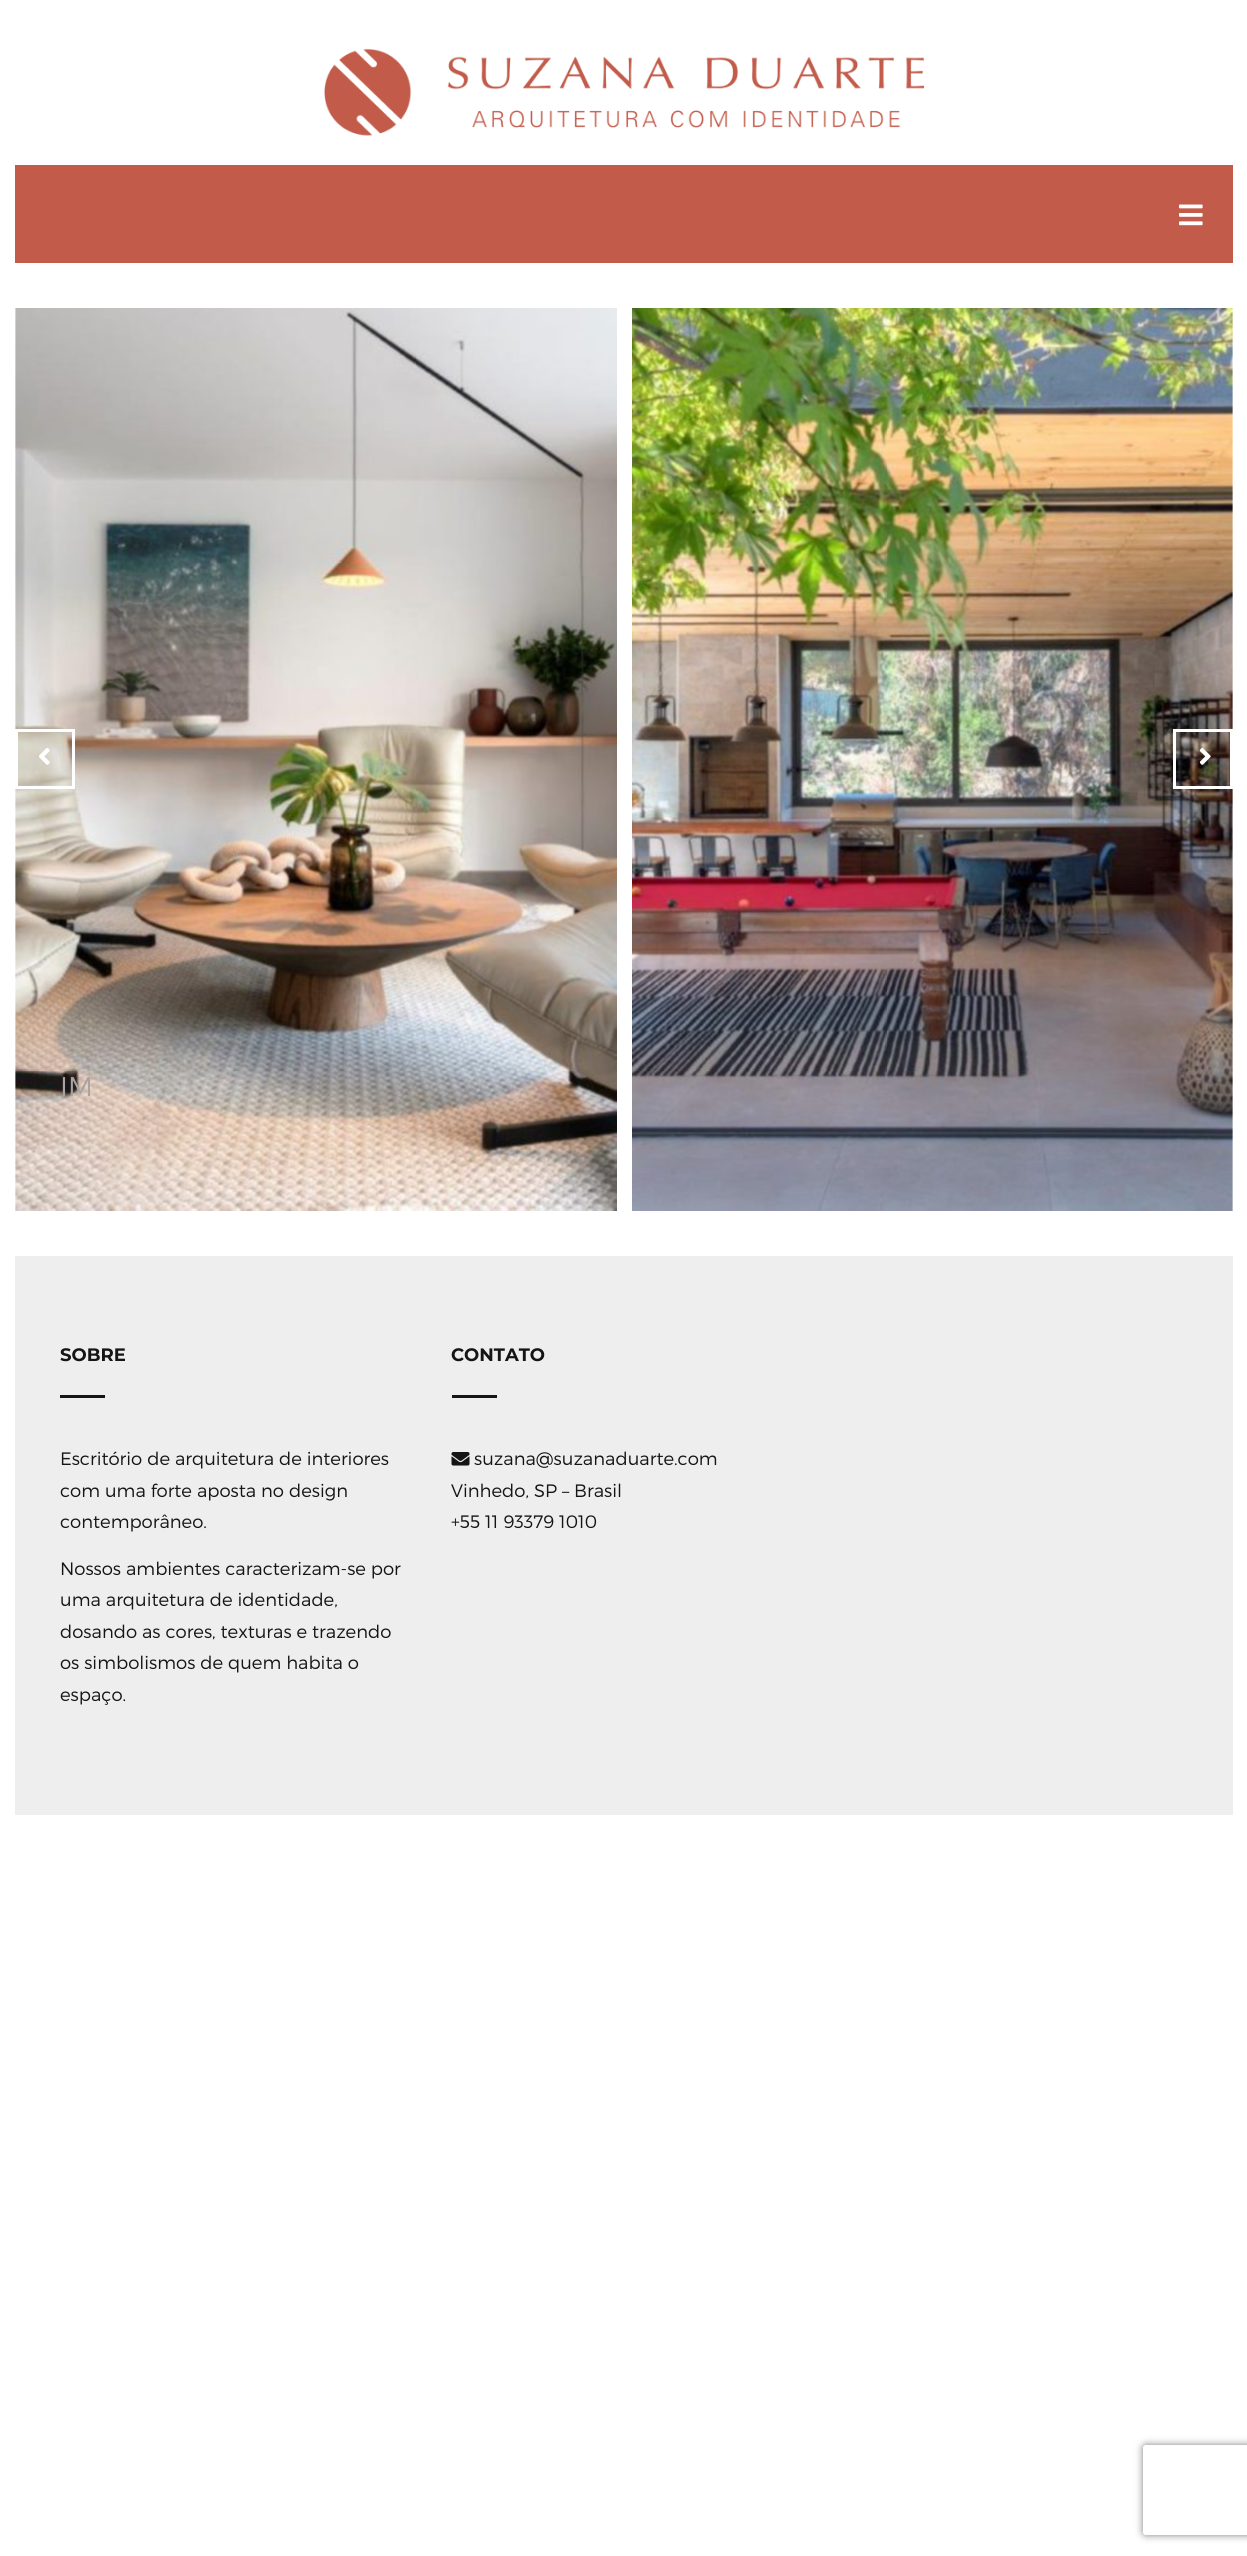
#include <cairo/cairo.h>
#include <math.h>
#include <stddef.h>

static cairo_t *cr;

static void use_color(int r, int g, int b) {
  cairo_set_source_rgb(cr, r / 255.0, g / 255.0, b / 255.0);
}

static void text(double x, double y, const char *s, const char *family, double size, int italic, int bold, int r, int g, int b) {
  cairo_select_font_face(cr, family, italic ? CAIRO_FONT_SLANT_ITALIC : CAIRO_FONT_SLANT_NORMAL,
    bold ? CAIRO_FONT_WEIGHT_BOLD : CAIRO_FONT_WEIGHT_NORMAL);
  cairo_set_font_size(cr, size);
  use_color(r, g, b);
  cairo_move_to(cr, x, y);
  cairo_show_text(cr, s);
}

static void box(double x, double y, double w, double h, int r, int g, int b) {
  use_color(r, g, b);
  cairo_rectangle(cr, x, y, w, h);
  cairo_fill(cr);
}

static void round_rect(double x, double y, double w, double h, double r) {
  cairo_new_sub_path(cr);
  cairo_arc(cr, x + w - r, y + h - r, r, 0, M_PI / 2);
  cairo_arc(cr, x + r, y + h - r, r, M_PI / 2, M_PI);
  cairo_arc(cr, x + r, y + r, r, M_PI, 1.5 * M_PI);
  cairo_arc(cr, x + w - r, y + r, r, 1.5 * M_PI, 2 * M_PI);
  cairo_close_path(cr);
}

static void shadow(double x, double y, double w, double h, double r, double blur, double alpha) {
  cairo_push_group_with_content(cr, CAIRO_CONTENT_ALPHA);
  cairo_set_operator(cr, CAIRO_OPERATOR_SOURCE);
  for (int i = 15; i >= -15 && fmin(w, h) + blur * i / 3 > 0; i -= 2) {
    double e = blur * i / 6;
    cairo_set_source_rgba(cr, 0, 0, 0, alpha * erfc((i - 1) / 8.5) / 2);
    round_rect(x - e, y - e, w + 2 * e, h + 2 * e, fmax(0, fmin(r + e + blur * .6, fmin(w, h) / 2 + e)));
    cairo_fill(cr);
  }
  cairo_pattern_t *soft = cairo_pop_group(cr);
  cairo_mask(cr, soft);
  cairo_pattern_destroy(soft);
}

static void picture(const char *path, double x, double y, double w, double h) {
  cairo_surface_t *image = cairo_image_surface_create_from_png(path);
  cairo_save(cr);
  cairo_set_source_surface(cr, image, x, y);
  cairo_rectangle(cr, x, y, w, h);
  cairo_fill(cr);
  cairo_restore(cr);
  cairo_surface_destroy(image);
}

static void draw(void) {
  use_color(255, 255, 255);
  cairo_paint(cr);
  picture("img_01.png", 324, 48, 600, 88);
  box(15, 165, 1218, 98, 194, 91, 74);
  picture("img_02.png", 1179, 204, 24, 22);
  picture("img_05.png", 15, 308, 602, 903);
  cairo_rectangle(cr, 16.5, 730.5, 57, 57);
  use_color(255, 255, 255);
  cairo_set_line_width(cr, 3);
  cairo_stroke(cr);
  picture("img_03.png", 38, 748, 12, 17);
  picture("img_06.png", 632, 308, 601, 903);
  cairo_rectangle(cr, 1174.5, 730.5, 57, 57);
  cairo_stroke(cr);
  picture("img_04.png", 1199, 748, 12, 17);
  box(15, 1256, 1218, 559, 238, 238, 238);
  box(60, 1395, 45, 3, 21, 21, 21);
  box(452, 1395, 45, 3, 21, 21, 21);
  picture("img_07.png", 451, 1452, 19, 14);
  cairo_save(cr);
  cairo_set_fill_rule(cr, CAIRO_FILL_RULE_EVEN_ODD);
  cairo_new_path(cr);
  cairo_move_to(cr, 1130, 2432);
  cairo_line_to(cr, 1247, 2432);
  cairo_line_to(cr, 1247, 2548);
  cairo_line_to(cr, 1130, 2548);
  cairo_close_path(cr);
  cairo_move_to(cr, 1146, 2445);
  cairo_line_to(cr, 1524, 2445);
  cairo_curve_to(cr, 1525.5, 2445, 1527, 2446.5, 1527, 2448);
  cairo_line_to(cr, 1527, 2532);
  cairo_curve_to(cr, 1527, 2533.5, 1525.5, 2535, 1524, 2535);
  cairo_line_to(cr, 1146, 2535);
  cairo_curve_to(cr, 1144.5, 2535, 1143, 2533.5, 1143, 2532);
  cairo_line_to(cr, 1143, 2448);
  cairo_curve_to(cr, 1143, 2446.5, 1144.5, 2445, 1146, 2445);
  cairo_close_path(cr);
  cairo_clip(cr);
  use_color(128, 128, 128);
  shadow(1143, 2445, 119, 90, 3, 4, 1);
  cairo_restore(cr);
  text(60, 1096, "IM", "Montserrat Light", 27, 0, 0, 169, 164, 161);
  text(60, 1361, "SOBRE", "Montserrat", 18, 0, 1, 21, 21, 21);
  text(60, 1465, "Escritório de arquitetura de interiores", "Montserrat Light", 18, 0, 0, 21, 21, 21);
  text(60, 1497, "com uma forte aposta no design", "Montserrat Light", 18, 0, 0, 21, 21, 21);
  text(60, 1528, "contemporâneo.", "Montserrat Light", 18, 0, 0, 21, 21, 21);
  text(60, 1575, "Nossos ambientes caracterizam-se por", "Montserrat Light", 18, 0, 0, 21, 21, 21);
  text(60, 1606, "uma arquitetura de identidade,", "Montserrat Light", 18, 0, 0, 21, 21, 21);
  text(60, 1638, "dosando as cores, texturas e trazendo", "Montserrat Light", 18, 0, 0, 21, 21, 21);
  text(60, 1669, "os simbolismos de quem habita o", "Montserrat Light", 18, 0, 0, 21, 21, 21);
  text(60, 1701, "espaço.", "Montserrat Light", 18, 0, 0, 21, 21, 21);
  text(451, 1361, "CONTATO", "Montserrat", 18, 0, 1, 21, 21, 21);
  text(474, 1465, "suzana@suzanaduarte.com", "Montserrat Light", 18, 0, 0, 21, 21, 21);
  text(451, 1497, "Vinhedo, SP – Brasil", "Montserrat Light", 18, 0, 0, 21, 21, 21);
  text(451, 1528, "+55 11 93379 1010", "Montserrat Light", 18, 0, 0, 21, 21, 21);
}

int main(void) {
  cairo_surface_t *surface = cairo_image_surface_create(CAIRO_FORMAT_RGB24, 1247, 2556);
  cr = cairo_create(surface);
  cairo_font_options_t *options = cairo_font_options_create();
  cairo_font_options_set_hint_metrics(options, CAIRO_HINT_METRICS_OFF);
  cairo_font_options_set_hint_style(options, CAIRO_HINT_STYLE_NONE);
  cairo_set_font_options(cr, options);
  cairo_set_miter_limit(cr, 4);
  draw();
  cairo_surface_write_to_png(surface, "out.png");
  cairo_font_options_destroy(options);
  cairo_destroy(cr);
  cairo_surface_destroy(surface);
  return 0;
}
